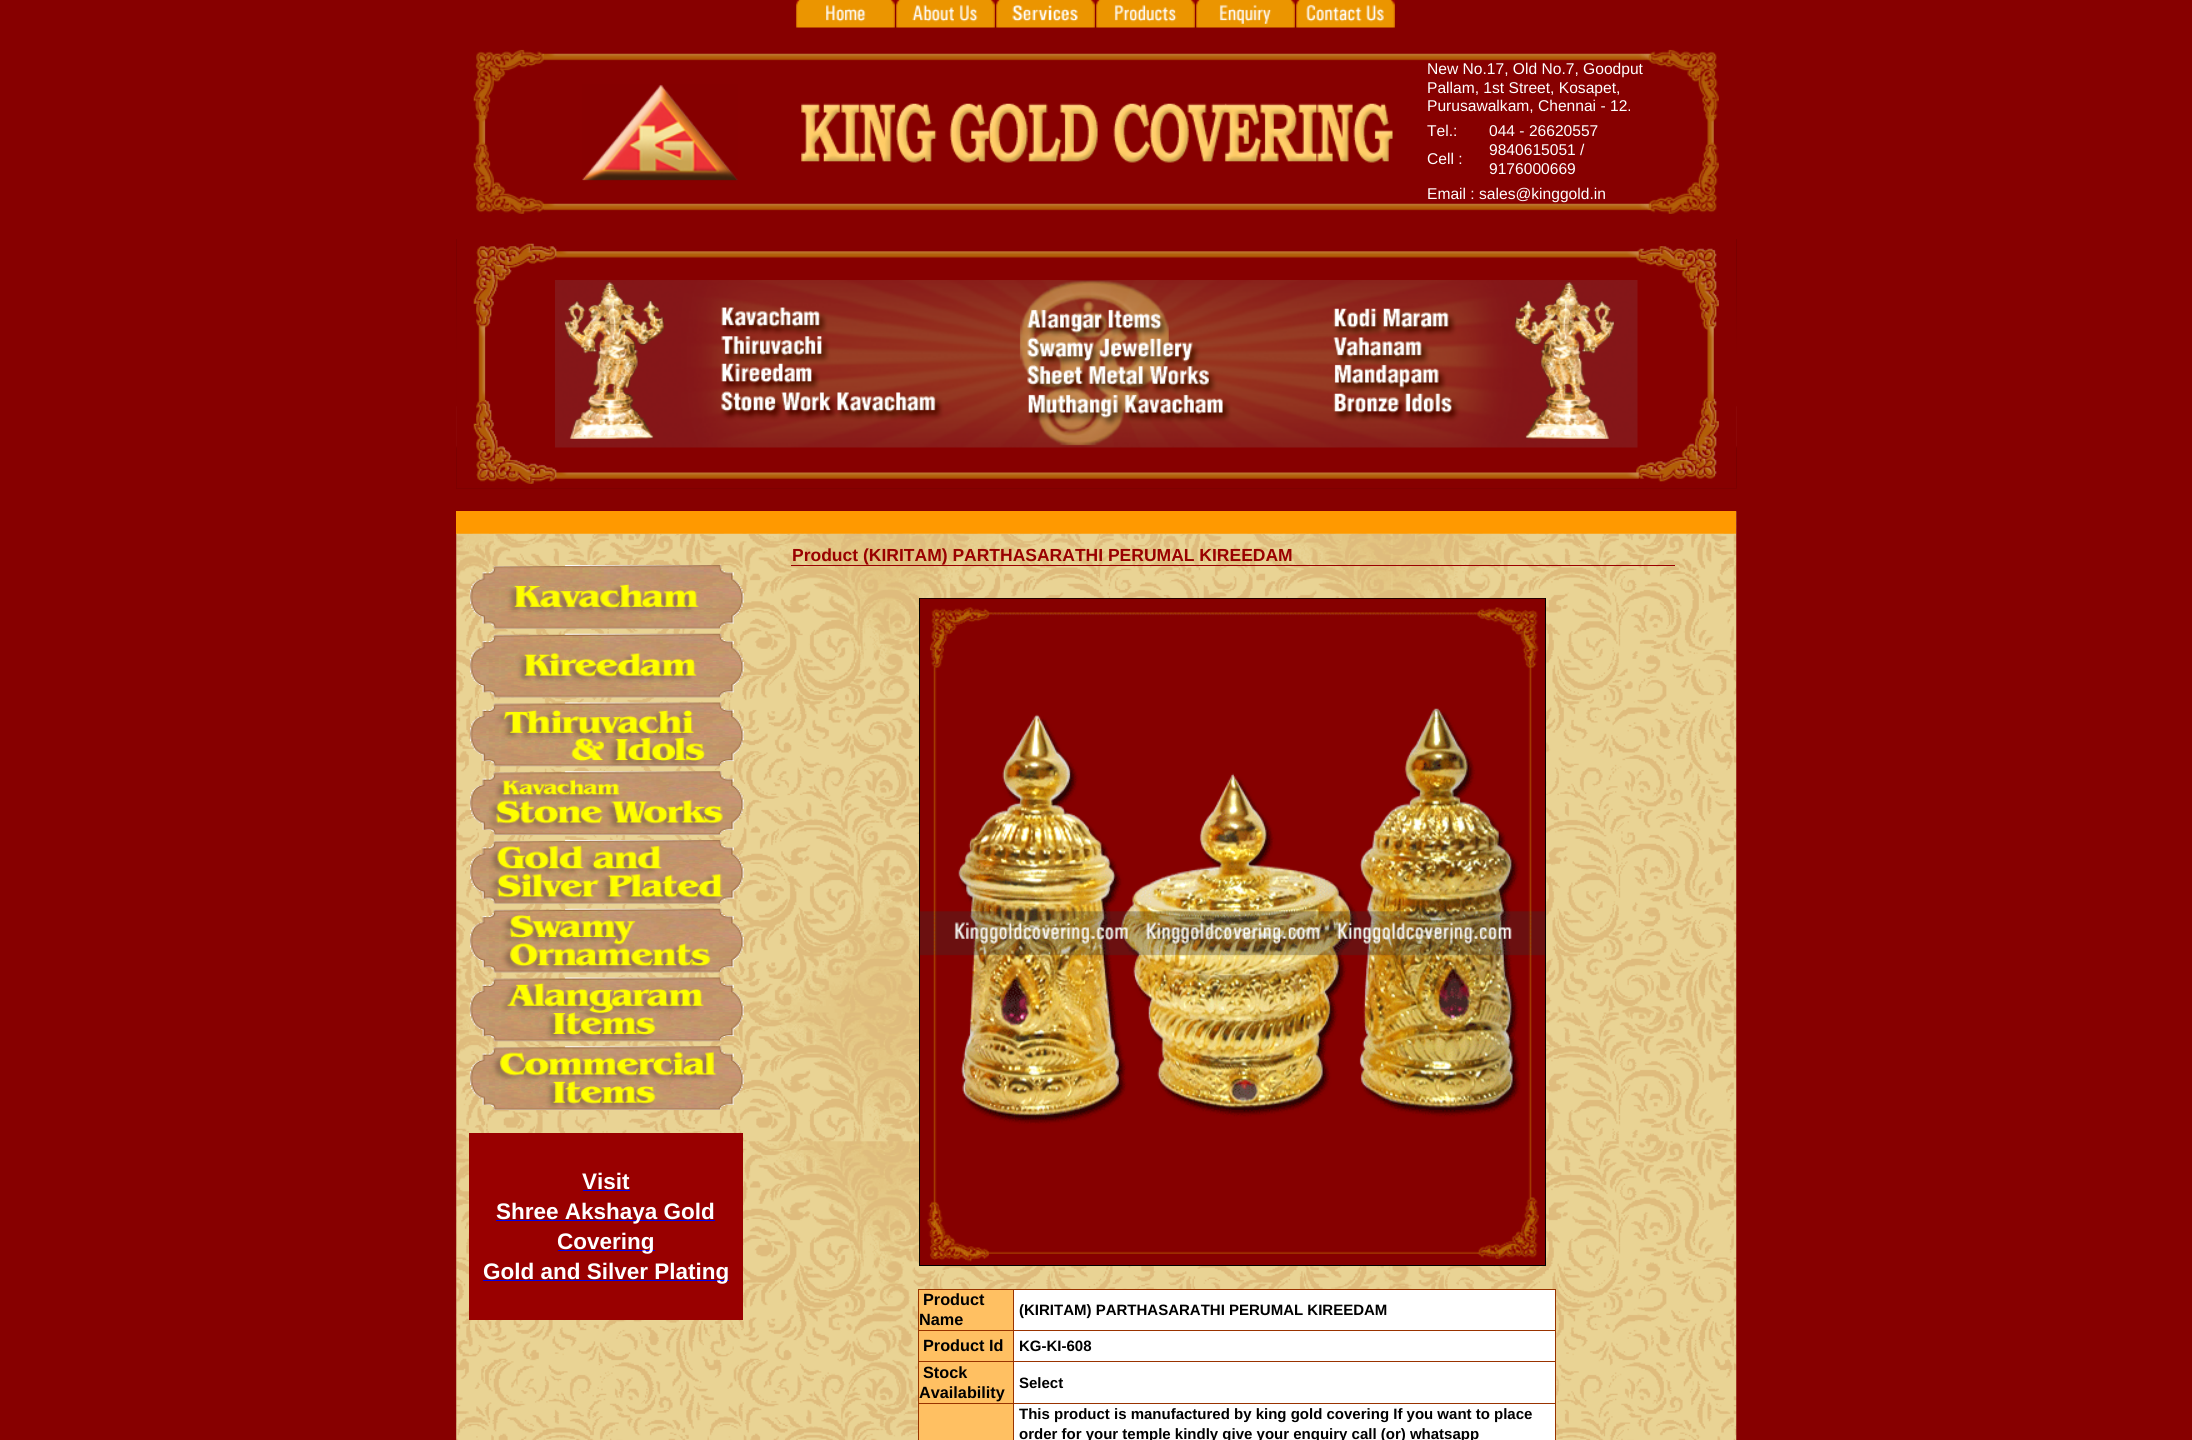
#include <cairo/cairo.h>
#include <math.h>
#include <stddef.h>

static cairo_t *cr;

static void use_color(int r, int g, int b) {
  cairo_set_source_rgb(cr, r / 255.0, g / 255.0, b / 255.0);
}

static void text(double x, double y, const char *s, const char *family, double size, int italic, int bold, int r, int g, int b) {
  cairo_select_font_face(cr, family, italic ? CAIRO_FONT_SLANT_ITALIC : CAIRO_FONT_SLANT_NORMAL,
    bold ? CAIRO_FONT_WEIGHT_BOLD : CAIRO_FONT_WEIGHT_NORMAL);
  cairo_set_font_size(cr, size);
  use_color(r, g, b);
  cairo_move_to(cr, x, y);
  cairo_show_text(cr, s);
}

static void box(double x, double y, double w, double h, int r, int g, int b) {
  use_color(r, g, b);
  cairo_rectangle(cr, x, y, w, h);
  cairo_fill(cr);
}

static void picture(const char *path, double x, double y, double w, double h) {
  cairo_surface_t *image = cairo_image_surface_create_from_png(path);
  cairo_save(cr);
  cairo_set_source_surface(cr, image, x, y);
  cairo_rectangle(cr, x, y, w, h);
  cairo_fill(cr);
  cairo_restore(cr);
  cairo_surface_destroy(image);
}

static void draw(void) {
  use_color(135, 0, 0);
  cairo_paint(cr);
  picture("img_01.png", 796, 0, 99, 28);
  picture("img_02.png", 896, 0, 99, 28);
  picture("img_03.png", 996, 0, 99, 28);
  picture("img_04.png", 1096, 0, 99, 28);
  picture("img_05.png", 1196, 0, 99, 28);
  picture("img_06.png", 1296, 0, 99, 28);
  picture("img_07.png", 473, 49, 1246, 165);
  picture("img_08.png", 582, 84, 156, 97);
  picture("img_09.png", 801, 103, 592, 60);
  picture("img_10.png", 456, 239, 1281, 250);
  picture("img_11.png", 456, 239, 1280, 250);
  picture("img_12.png", 555, 280, 1083, 168);
  picture("img_13.png", 1736, 511, 1, 23);
  box(456, 511, 1280, 23, 255, 153, 0);
  picture("img_14.png", 456, 533, 1281, 907);
  picture("img_15.png", 470, 565, 274, 64);
  picture("img_16.png", 470, 633, 274, 65);
  picture("img_17.png", 470, 702, 274, 65);
  picture("img_18.png", 470, 771, 274, 64);
  picture("img_19.png", 470, 840, 274, 64);
  picture("img_20.png", 470, 908, 274, 65);
  picture("img_21.png", 470, 977, 274, 65);
  picture("img_22.png", 470, 1046, 274, 64);
  box(469, 1133, 274, 187, 153, 0, 0);
  box(583, 1190, 47, 1, 0, 0, 238);
  box(496, 1220, 219, 1, 0, 0, 238);
  box(558, 1250, 97, 1, 0, 0, 238);
  box(483, 1280, 246, 1, 0, 0, 238);
  box(791, 565, 884, 1, 153, 0, 0);
  cairo_rectangle(cr, 919.5, 598.5, 626, 667);
  use_color(0, 0, 0);
  cairo_set_line_width(cr, 1);
  cairo_stroke(cr);
  picture("img_23.png", 920, 598, 625, 667);
  box(918, 1289, 638, 1, 153, 51, 0);
  box(1555, 1289, 1, 151, 153, 51, 0);
  box(918, 1289, 1, 151, 153, 51, 0);
  box(919, 1290, 94, 40, 255, 192, 98);
  box(1014, 1290, 541, 40, 255, 255, 255);
  box(1013, 1330, 543, 1, 153, 51, 0);
  box(919, 1331, 94, 72, 255, 192, 98);
  box(1014, 1331, 541, 72, 255, 255, 255);
  box(1013, 1361, 543, 1, 153, 51, 0);
  box(1013, 1403, 543, 1, 153, 51, 0);
  box(1013, 1403, 1, 37, 153, 51, 0);
  box(918, 1403, 96, 1, 153, 51, 0);
  box(1013, 1361, 1, 43, 153, 51, 0);
  box(918, 1361, 96, 1, 153, 51, 0);
  box(1013, 1330, 1, 33, 153, 51, 0);
  box(918, 1330, 96, 1, 153, 51, 0);
  box(1013, 1289, 1, 42, 153, 51, 0);
  box(919, 1404, 94, 36, 255, 192, 98);
  box(1014, 1404, 541, 36, 255, 255, 255);
  text(1427, 74, "New No.17, Old No.7, Goodput", "Liberation Sans", 15.6, 0, 0, 255, 255, 255);
  text(1427, 93, "Pallam, 1st Street, Kosapet,", "Liberation Sans", 15.6, 0, 0, 255, 255, 255);
  text(1427, 111, "Purusawalkam, Chennai - 12.", "Liberation Sans", 15.6, 0, 0, 255, 255, 255);
  text(1427, 136, "Tel.:", "Liberation Sans", 15.6, 0, 0, 255, 255, 255);
  text(1489, 136, "044 - 26620557", "Liberation Sans", 15.6, 0, 0, 255, 255, 255);
  text(1427, 164, "Cell :", "Liberation Sans", 15.6, 0, 0, 255, 255, 255);
  text(1489, 155, "9840615051 /", "Liberation Sans", 15.6, 0, 0, 255, 255, 255);
  text(1489, 174, "9176000669", "Liberation Sans", 15.6, 0, 0, 255, 255, 255);
  text(1427, 199, "Email : sales@kinggold.in", "Liberation Sans", 15.6, 0, 0, 255, 255, 255);
  text(582, 1189, "Visit", "Liberation Sans", 22.5, 0, 1, 255, 255, 255);
  text(496, 1219, "Shree Akshaya Gold", "Liberation Sans", 22.5, 0, 1, 255, 255, 255);
  text(557, 1249, "Covering", "Liberation Sans", 22.5, 0, 1, 255, 255, 255);
  text(483, 1279, "Gold and Silver Plating", "Liberation Sans", 22.5, 0, 1, 255, 255, 255);
  text(792, 561, "Product (KIRITAM) PARTHASARATHI PERUMAL KIREEDAM", "Liberation Sans", 17.5, 0, 1, 153, 0, 0);
  text(923, 1305, "Product", "Liberation Sans", 16.25, 0, 1, 0, 0, 0);
  text(919, 1325, "Name", "Liberation Sans", 16.25, 0, 1, 0, 0, 0);
  text(1019, 1315, "(KIRITAM) PARTHASARATHI PERUMAL KIREEDAM", "Liberation Sans", 15, 0, 1, 0, 0, 0);
  text(923, 1351, "Product Id", "Liberation Sans", 16.25, 0, 1, 0, 0, 0);
  text(1019, 1351, "KG-KI-608", "Liberation Sans", 15, 0, 1, 0, 0, 0);
  text(923, 1378, "Stock", "Liberation Sans", 16.25, 0, 1, 0, 0, 0);
  text(919, 1398, "Availability", "Liberation Sans", 16.25, 0, 1, 0, 0, 0);
  text(1019, 1388, "Select", "Liberation Sans", 15, 0, 1, 0, 0, 0);
  text(1019, 1419, "This product is manufactured by king gold covering If you want to place", "Liberation Sans", 15, 0, 1, 0, 0, 0);
  text(1019, 1439, "order for your temple kindly give your enquiry call (or) whatsapp", "Liberation Sans", 15, 0, 1, 0, 0, 0);
}

int main(void) {
  cairo_surface_t *surface = cairo_image_surface_create(CAIRO_FORMAT_RGB24, 2192, 1440);
  cr = cairo_create(surface);
  cairo_font_options_t *options = cairo_font_options_create();
  cairo_font_options_set_hint_metrics(options, CAIRO_HINT_METRICS_OFF);
  cairo_font_options_set_hint_style(options, CAIRO_HINT_STYLE_NONE);
  cairo_set_font_options(cr, options);
  cairo_set_miter_limit(cr, 4);
  draw();
  cairo_surface_write_to_png(surface, "out.png");
  cairo_font_options_destroy(options);
  cairo_destroy(cr);
  cairo_surface_destroy(surface);
  return 0;
}
